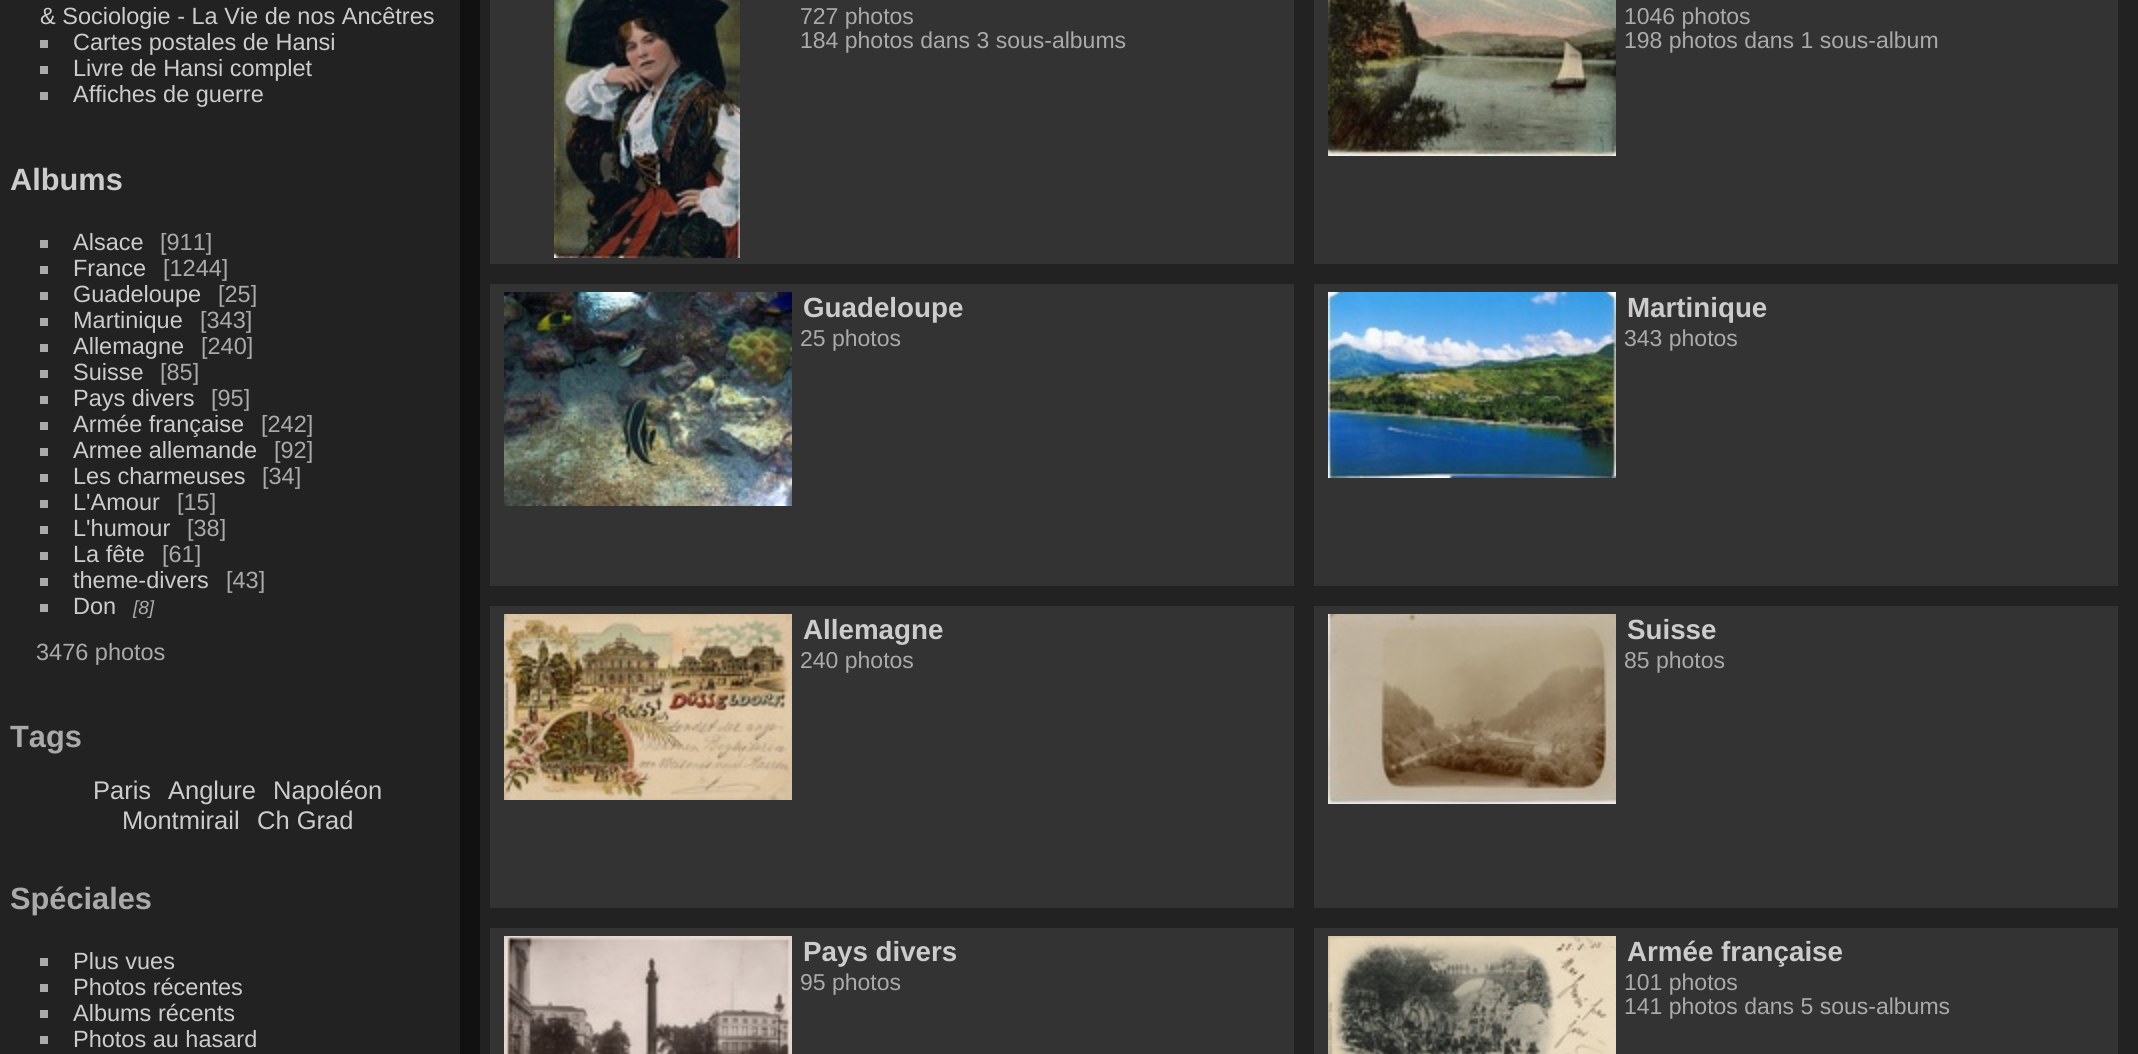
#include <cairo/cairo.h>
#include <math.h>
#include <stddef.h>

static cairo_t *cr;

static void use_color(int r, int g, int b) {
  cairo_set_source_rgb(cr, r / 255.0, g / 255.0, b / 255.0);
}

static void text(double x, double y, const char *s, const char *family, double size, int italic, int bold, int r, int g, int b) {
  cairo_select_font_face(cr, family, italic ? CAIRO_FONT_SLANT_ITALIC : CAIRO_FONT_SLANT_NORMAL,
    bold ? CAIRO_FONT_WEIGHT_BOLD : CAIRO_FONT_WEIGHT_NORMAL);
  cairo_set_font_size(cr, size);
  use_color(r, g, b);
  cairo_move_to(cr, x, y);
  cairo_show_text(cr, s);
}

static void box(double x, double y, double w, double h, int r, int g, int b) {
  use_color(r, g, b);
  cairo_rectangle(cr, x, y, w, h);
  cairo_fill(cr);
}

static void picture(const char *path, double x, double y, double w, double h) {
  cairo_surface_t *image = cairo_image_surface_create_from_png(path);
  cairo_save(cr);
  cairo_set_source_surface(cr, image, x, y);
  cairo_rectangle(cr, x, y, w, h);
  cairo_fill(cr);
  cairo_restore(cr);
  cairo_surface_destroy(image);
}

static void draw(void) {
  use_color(17, 17, 17);
  cairo_paint(cr);
  box(0, 0, 460, 1054, 34, 34, 34);
  box(40, 40, 8, 8, 170, 170, 170);
  box(40, 66, 8, 8, 170, 170, 170);
  box(40, 92, 8, 8, 170, 170, 170);
  box(40, 240, 8, 8, 170, 170, 170);
  box(40, 266, 8, 8, 170, 170, 170);
  box(40, 292, 8, 8, 170, 170, 170);
  box(40, 318, 8, 8, 170, 170, 170);
  box(40, 344, 8, 8, 170, 170, 170);
  box(40, 370, 8, 8, 170, 170, 170);
  box(40, 396, 8, 8, 170, 170, 170);
  box(40, 422, 8, 8, 170, 170, 170);
  box(40, 448, 8, 8, 170, 170, 170);
  box(40, 474, 8, 8, 170, 170, 170);
  box(40, 500, 8, 8, 170, 170, 170);
  box(40, 526, 8, 8, 170, 170, 170);
  box(40, 552, 8, 8, 170, 170, 170);
  box(40, 578, 8, 8, 170, 170, 170);
  box(40, 604, 8, 8, 170, 170, 170);
  box(40, 958, 8, 8, 170, 170, 170);
  box(40, 984, 8, 8, 170, 170, 170);
  box(40, 1010, 8, 8, 170, 170, 170);
  box(40, 1036, 8, 8, 170, 170, 170);
  box(480, 0, 1658, 1054, 34, 34, 34);
  box(490, 0, 804, 264, 51, 51, 51);
  picture("img_01.png", 554, 0, 186, 258);
  box(1314, 0, 804, 264, 51, 51, 51);
  picture("img_02.png", 1328, 0, 288, 156);
  box(490, 284, 804, 302, 51, 51, 51);
  picture("img_03.png", 504, 292, 288, 214);
  box(1314, 284, 804, 302, 51, 51, 51);
  picture("img_04.png", 1328, 292, 288, 186);
  box(490, 606, 804, 302, 51, 51, 51);
  picture("img_05.png", 504, 614, 288, 186);
  box(1314, 606, 804, 302, 51, 51, 51);
  picture("img_06.png", 1328, 614, 288, 190);
  box(490, 928, 804, 126, 51, 51, 51);
  picture("img_07.png", 504, 936, 288, 118);
  box(1314, 928, 804, 126, 51, 51, 51);
  picture("img_08.png", 1328, 936, 288, 118);
  text(40, 24, "& Sociologie - La Vie de nos Ancêtres", "Liberation Sans", 23.5, 0, 0, 204, 204, 204);
  text(73, 50, "Cartes postales de Hansi", "Liberation Sans", 23.5, 0, 0, 204, 204, 204);
  text(73, 76, "Livre de Hansi complet", "Liberation Sans", 23.5, 0, 0, 204, 204, 204);
  text(73, 102, "Affiches de guerre", "Liberation Sans", 23.5, 0, 0, 204, 204, 204);
  text(10, 190, "Albums", "Liberation Sans", 30.75, 0, 1, 204, 204, 204);
  text(73, 250, "Alsace", "Liberation Sans", 23.5, 0, 0, 204, 204, 204);
  text(160, 250, "[911]", "Liberation Sans", 23.5, 0, 0, 170, 170, 170);
  text(73, 276, "France", "Liberation Sans", 23.5, 0, 0, 204, 204, 204);
  text(163, 276, "[1244]", "Liberation Sans", 23.5, 0, 0, 170, 170, 170);
  text(73, 302, "Guadeloupe", "Liberation Sans", 23.5, 0, 0, 204, 204, 204);
  text(218, 302, "[25]", "Liberation Sans", 23.5, 0, 0, 170, 170, 170);
  text(73, 328, "Martinique", "Liberation Sans", 23.5, 0, 0, 204, 204, 204);
  text(200, 328, "[343]", "Liberation Sans", 23.5, 0, 0, 170, 170, 170);
  text(73, 354, "Allemagne", "Liberation Sans", 23.5, 0, 0, 204, 204, 204);
  text(201, 354, "[240]", "Liberation Sans", 23.5, 0, 0, 170, 170, 170);
  text(73, 380, "Suisse", "Liberation Sans", 23.5, 0, 0, 204, 204, 204);
  text(160, 380, "[85]", "Liberation Sans", 23.5, 0, 0, 170, 170, 170);
  text(73, 406, "Pays divers", "Liberation Sans", 23.5, 0, 0, 204, 204, 204);
  text(211, 406, "[95]", "Liberation Sans", 23.5, 0, 0, 170, 170, 170);
  text(73, 432, "Armée française", "Liberation Sans", 23.5, 0, 0, 204, 204, 204);
  text(261, 432, "[242]", "Liberation Sans", 23.5, 0, 0, 170, 170, 170);
  text(73, 458, "Armee allemande", "Liberation Sans", 23.5, 0, 0, 204, 204, 204);
  text(274, 458, "[92]", "Liberation Sans", 23.5, 0, 0, 170, 170, 170);
  text(73, 484, "Les charmeuses", "Liberation Sans", 23.5, 0, 0, 204, 204, 204);
  text(262, 484, "[34]", "Liberation Sans", 23.5, 0, 0, 170, 170, 170);
  text(73, 510, "L'Amour", "Liberation Sans", 23.5, 0, 0, 204, 204, 204);
  text(177, 510, "[15]", "Liberation Sans", 23.5, 0, 0, 170, 170, 170);
  text(73, 536, "L'humour", "Liberation Sans", 23.5, 0, 0, 204, 204, 204);
  text(187, 536, "[38]", "Liberation Sans", 23.5, 0, 0, 170, 170, 170);
  text(73, 562, "La fête", "Liberation Sans", 23.5, 0, 0, 204, 204, 204);
  text(162, 562, "[61]", "Liberation Sans", 23.5, 0, 0, 170, 170, 170);
  text(73, 588, "theme-divers", "Liberation Sans", 23.5, 0, 0, 204, 204, 204);
  text(226, 588, "[43]", "Liberation Sans", 23.5, 0, 0, 170, 170, 170);
  text(73, 614, "Don", "Liberation Sans", 23.5, 0, 0, 204, 204, 204);
  text(133, 614, "[8]", "Liberation Sans", 19, 1, 0, 170, 170, 170);
  text(36, 660, "3476 photos", "Liberation Sans", 23.5, 0, 0, 170, 170, 170);
  text(10, 747, "Tags", "Liberation Sans", 30.75, 0, 1, 170, 170, 170);
  text(93, 799, "Paris", "Liberation Sans", 25.5, 0, 0, 204, 204, 204);
  text(168, 799, "Anglure", "Liberation Sans", 25.5, 0, 0, 204, 204, 204);
  text(273, 799, "Napoléon", "Liberation Sans", 25.5, 0, 0, 204, 204, 204);
  text(122, 829, "Montmirail", "Liberation Sans", 25.5, 0, 0, 204, 204, 204);
  text(257, 829, "Ch Grad", "Liberation Sans", 25.5, 0, 0, 204, 204, 204);
  text(10, 909, "Spéciales", "Liberation Sans", 30.75, 0, 1, 170, 170, 170);
  text(73, 969, "Plus vues", "Liberation Sans", 23.5, 0, 0, 204, 204, 204);
  text(73, 995, "Photos récentes", "Liberation Sans", 23.5, 0, 0, 204, 204, 204);
  text(73, 1021, "Albums récents", "Liberation Sans", 23.5, 0, 0, 204, 204, 204);
  text(73, 1047, "Photos au hasard", "Liberation Sans", 23.5, 0, 0, 204, 204, 204);
  text(800, 24, "727 photos", "Liberation Sans", 23, 0, 0, 170, 170, 170);
  text(800, 48, "184 photos dans 3 sous-albums", "Liberation Sans", 23, 0, 0, 170, 170, 170);
  text(1624, 24, "1046 photos", "Liberation Sans", 23, 0, 0, 170, 170, 170);
  text(1624, 48, "198 photos dans 1 sous-album", "Liberation Sans", 23, 0, 0, 170, 170, 170);
  text(803, 317, "Guadeloupe", "Liberation Sans", 27.75, 0, 1, 204, 204, 204);
  text(800, 346, "25 photos", "Liberation Sans", 23, 0, 0, 170, 170, 170);
  text(1627, 317, "Martinique", "Liberation Sans", 27.75, 0, 1, 204, 204, 204);
  text(1624, 346, "343 photos", "Liberation Sans", 23, 0, 0, 170, 170, 170);
  text(803, 639, "Allemagne", "Liberation Sans", 27.75, 0, 1, 204, 204, 204);
  text(800, 668, "240 photos", "Liberation Sans", 23, 0, 0, 170, 170, 170);
  text(1627, 639, "Suisse", "Liberation Sans", 27.75, 0, 1, 204, 204, 204);
  text(1624, 668, "85 photos", "Liberation Sans", 23, 0, 0, 170, 170, 170);
  text(803, 961, "Pays divers", "Liberation Sans", 27.75, 0, 1, 204, 204, 204);
  text(800, 990, "95 photos", "Liberation Sans", 23, 0, 0, 170, 170, 170);
  text(1627, 961, "Armée française", "Liberation Sans", 27.75, 0, 1, 204, 204, 204);
  text(1624, 990, "101 photos", "Liberation Sans", 23, 0, 0, 170, 170, 170);
  text(1624, 1014, "141 photos dans 5 sous-albums", "Liberation Sans", 23, 0, 0, 170, 170, 170);
}

int main(void) {
  cairo_surface_t *surface = cairo_image_surface_create(CAIRO_FORMAT_RGB24, 2138, 1054);
  cr = cairo_create(surface);
  cairo_font_options_t *options = cairo_font_options_create();
  cairo_font_options_set_hint_metrics(options, CAIRO_HINT_METRICS_OFF);
  cairo_font_options_set_hint_style(options, CAIRO_HINT_STYLE_NONE);
  cairo_set_font_options(cr, options);
  cairo_set_miter_limit(cr, 4);
  draw();
  cairo_surface_write_to_png(surface, "out.png");
  cairo_font_options_destroy(options);
  cairo_destroy(cr);
  cairo_surface_destroy(surface);
  return 0;
}
